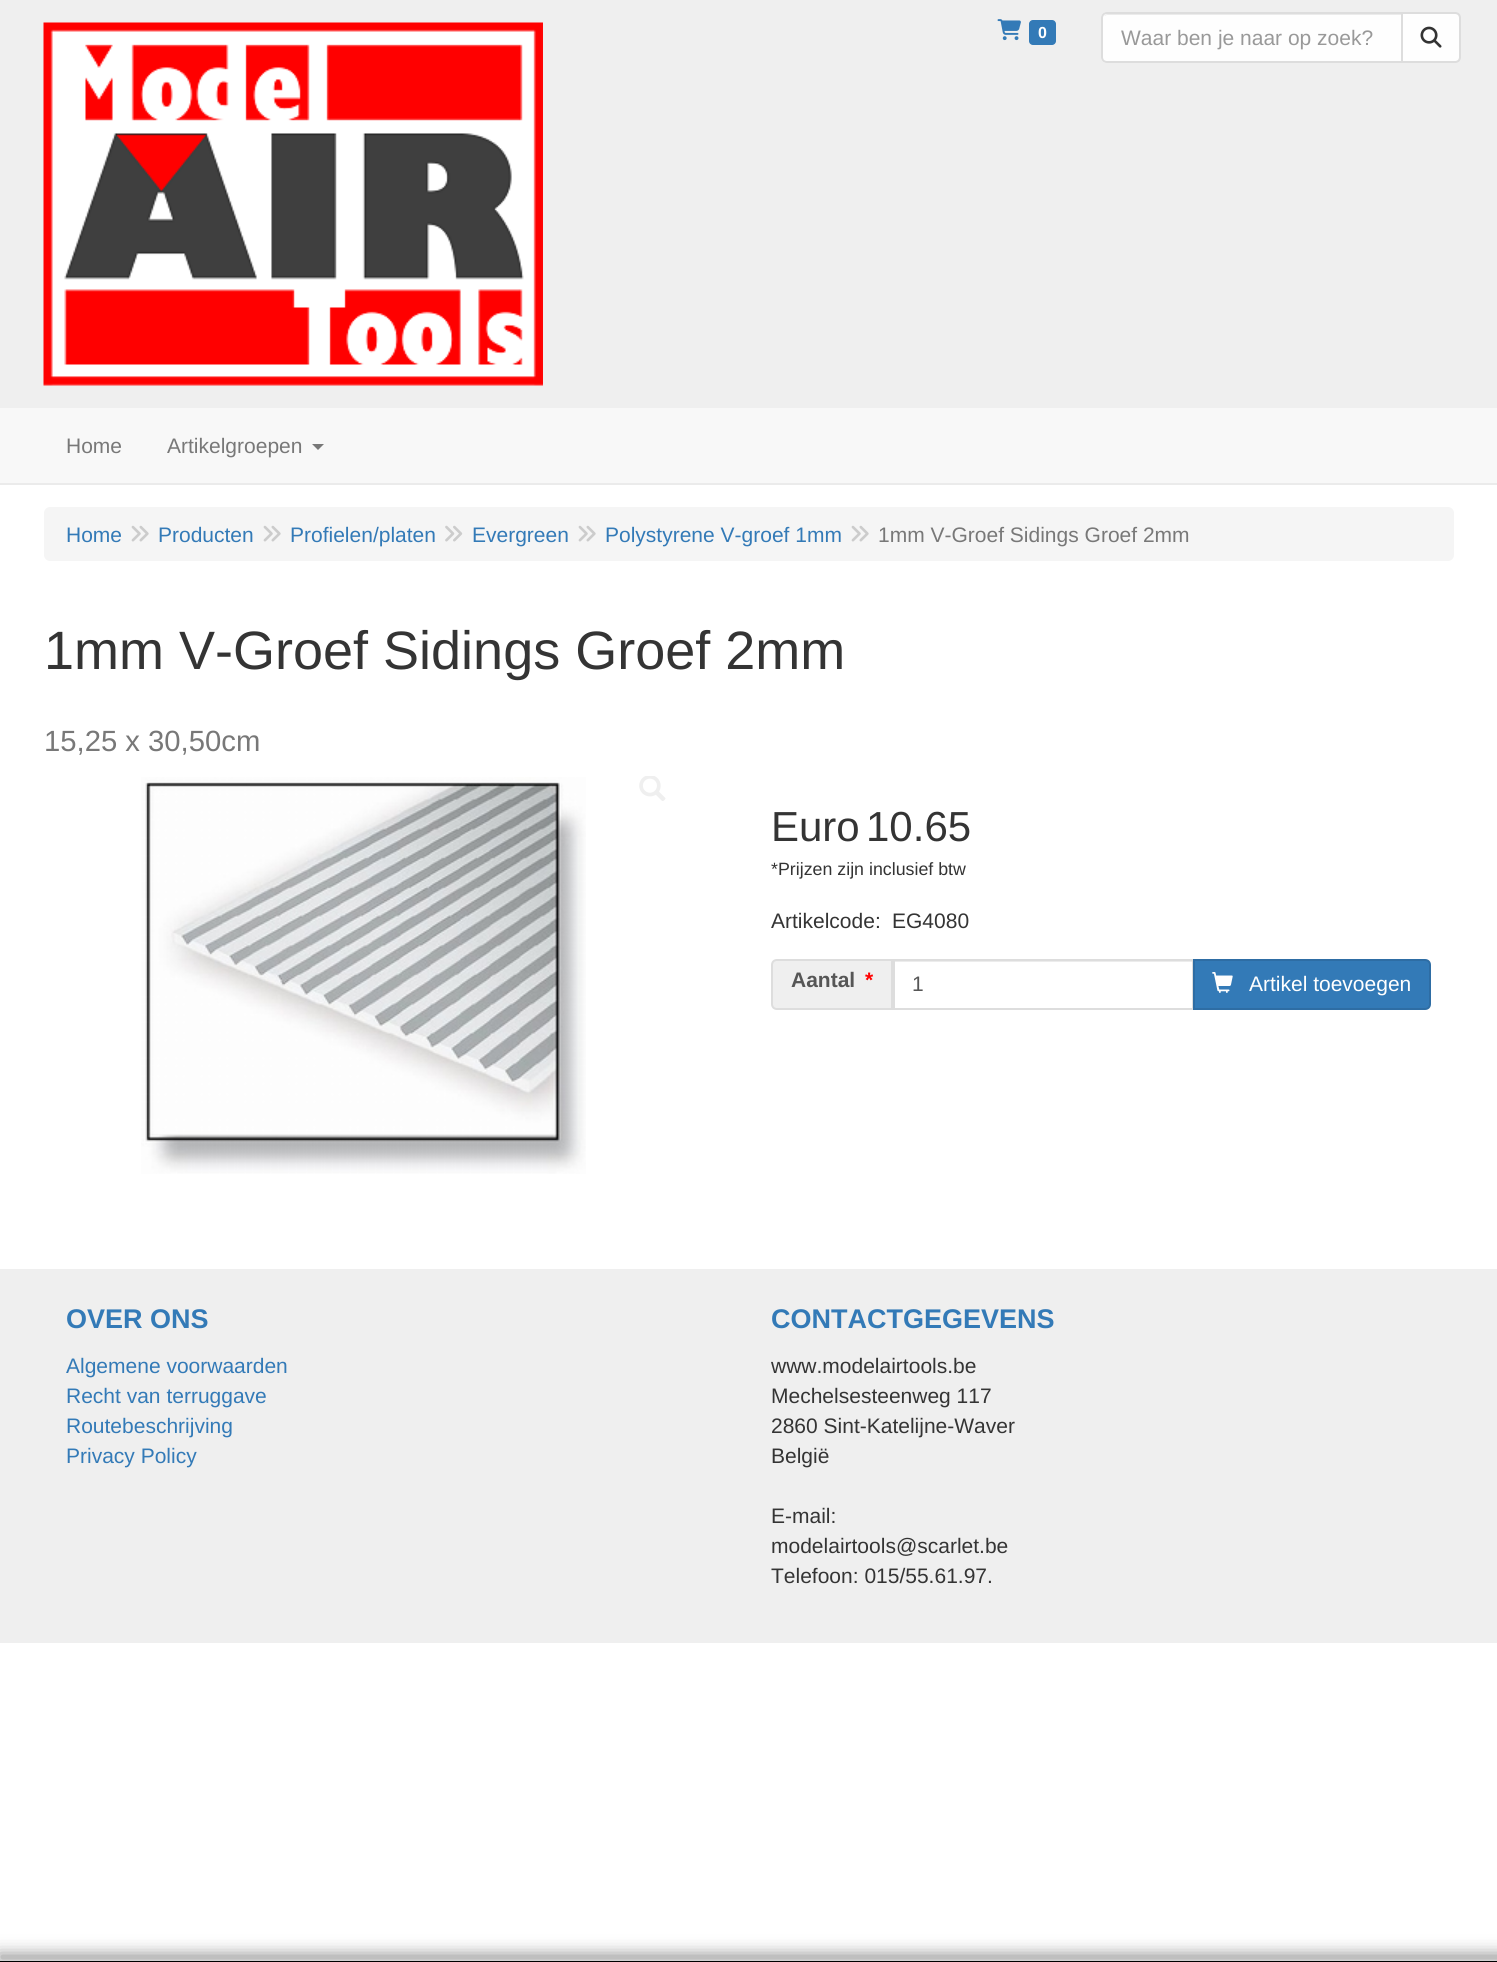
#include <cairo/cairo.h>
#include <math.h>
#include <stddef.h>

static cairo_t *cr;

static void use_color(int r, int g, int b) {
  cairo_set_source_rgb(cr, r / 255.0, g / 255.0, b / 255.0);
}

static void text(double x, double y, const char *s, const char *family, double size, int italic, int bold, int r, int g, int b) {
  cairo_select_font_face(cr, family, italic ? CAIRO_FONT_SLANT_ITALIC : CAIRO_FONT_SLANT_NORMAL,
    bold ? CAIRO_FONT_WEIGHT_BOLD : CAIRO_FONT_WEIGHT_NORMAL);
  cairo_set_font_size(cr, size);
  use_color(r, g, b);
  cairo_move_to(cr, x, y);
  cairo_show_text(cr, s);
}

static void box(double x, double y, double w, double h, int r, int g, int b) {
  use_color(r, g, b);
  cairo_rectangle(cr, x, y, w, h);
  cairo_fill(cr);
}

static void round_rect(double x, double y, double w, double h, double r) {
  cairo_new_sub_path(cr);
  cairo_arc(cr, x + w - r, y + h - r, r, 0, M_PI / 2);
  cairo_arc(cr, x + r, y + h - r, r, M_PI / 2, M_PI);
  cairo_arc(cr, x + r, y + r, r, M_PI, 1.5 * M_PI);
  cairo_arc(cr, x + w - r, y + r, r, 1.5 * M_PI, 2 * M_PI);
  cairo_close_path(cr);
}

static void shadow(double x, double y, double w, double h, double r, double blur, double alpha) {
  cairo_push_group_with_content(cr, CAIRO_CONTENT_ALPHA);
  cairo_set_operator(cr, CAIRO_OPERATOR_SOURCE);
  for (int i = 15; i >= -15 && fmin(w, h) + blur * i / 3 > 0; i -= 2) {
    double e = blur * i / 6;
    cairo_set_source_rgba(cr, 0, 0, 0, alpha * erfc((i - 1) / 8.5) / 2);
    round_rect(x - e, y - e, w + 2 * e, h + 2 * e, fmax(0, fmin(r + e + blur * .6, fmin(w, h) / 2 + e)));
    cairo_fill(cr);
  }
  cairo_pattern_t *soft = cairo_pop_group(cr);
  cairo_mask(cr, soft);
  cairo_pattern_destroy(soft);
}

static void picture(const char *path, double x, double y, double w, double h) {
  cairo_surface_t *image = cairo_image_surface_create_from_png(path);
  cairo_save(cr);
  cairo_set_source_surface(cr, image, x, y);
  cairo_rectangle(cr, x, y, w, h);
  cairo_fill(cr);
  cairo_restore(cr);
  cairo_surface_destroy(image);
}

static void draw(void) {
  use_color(255, 255, 255);
  cairo_paint(cr);
  box(0, 0, 1497, 408, 239, 239, 239);
  picture("img_01.png", 43, 22, 500, 364);
  picture("img_02.png", 997, 19, 24, 22);
  use_color(51, 122, 183);
  round_rect(1029, 20, 27, 25, 4);
  cairo_fill(cr);
  use_color(254, 254, 254);
  cairo_new_path(cr);
  cairo_move_to(cr, 1107, 12);
  cairo_line_to(cr, 1403, 12);
  cairo_line_to(cr, 1403, 63);
  cairo_line_to(cr, 1107, 63);
  cairo_curve_to(cr, 1103.5, 63, 1101, 60.5, 1101, 57);
  cairo_line_to(cr, 1101, 18);
  cairo_curve_to(cr, 1101, 14.5, 1103.5, 12, 1107, 12);
  cairo_close_path(cr);
  cairo_fill(cr);
  use_color(235, 235, 235);
  cairo_new_path(cr);
  cairo_move_to(cr, 1107, 15);
  cairo_line_to(cr, 1401, 15);
  cairo_line_to(cr, 1401, 14);
  cairo_line_to(cr, 1108, 14);
  cairo_curve_to(cr, 1106, 14, 1105, 15, 1104, 16);
  cairo_close_path(cr);
  cairo_fill(cr);
  cairo_new_path(cr);
  cairo_move_to(cr, 1107, 13);
  cairo_line_to(cr, 1402, 13);
  cairo_line_to(cr, 1402, 62);
  cairo_line_to(cr, 1107, 62);
  cairo_curve_to(cr, 1104, 62, 1102, 60, 1102, 57);
  cairo_line_to(cr, 1102, 18);
  cairo_curve_to(cr, 1102, 15, 1104, 13, 1107, 13);
  cairo_close_path(cr);
  use_color(221, 221, 221);
  cairo_stroke(cr);
  use_color(254, 254, 254);
  cairo_new_path(cr);
  cairo_move_to(cr, 1402, 13);
  cairo_line_to(cr, 1455, 13);
  cairo_curve_to(cr, 1458, 13, 1460, 15, 1460, 18);
  cairo_line_to(cr, 1460, 57);
  cairo_curve_to(cr, 1460, 60, 1458, 62, 1455, 62);
  cairo_line_to(cr, 1402, 62);
  cairo_close_path(cr);
  cairo_fill_preserve(cr);
  use_color(221, 221, 221);
  cairo_stroke(cr);
  picture("img_03.png", 1420, 26, 22, 22);
  box(0, 408, 1497, 75, 248, 248, 248);
  box(0, 483, 1497, 2, 235, 235, 235);
  use_color(120, 120, 120);
  cairo_new_path(cr);
  cairo_move_to(cr, 312, 444);
  cairo_line_to(cr, 324, 444);
  cairo_line_to(cr, 318, 450);
  cairo_close_path(cr);
  cairo_fill(cr);
  use_color(245, 245, 245);
  round_rect(44, 507, 1410, 54, 6);
  cairo_fill(cr);
  picture("img_04.png", 131, 525, 18, 17);
  picture("img_04.png", 263, 525, 18, 17);
  picture("img_05.png", 445, 525, 18, 17);
  picture("img_04.png", 578, 525, 18, 17);
  picture("img_04.png", 851, 525, 18, 17);
  picture("img_06.png", 141, 777, 445, 397);
  picture("img_07.png", 639, 776, 27, 25);
  use_color(239, 239, 239);
  cairo_new_path(cr);
  cairo_move_to(cr, 777, 960);
  cairo_line_to(cr, 892, 960);
  cairo_line_to(cr, 892, 1009);
  cairo_line_to(cr, 777, 1009);
  cairo_curve_to(cr, 774, 1009, 772, 1007, 772, 1004);
  cairo_line_to(cr, 772, 965);
  cairo_curve_to(cr, 772, 962, 774, 960, 777, 960);
  cairo_close_path(cr);
  cairo_fill_preserve(cr);
  use_color(221, 221, 221);
  cairo_stroke(cr);
  box(894, 961, 299, 1, 236, 236, 236);
  cairo_rectangle(cr, 894, 960, 299, 49);
  use_color(221, 221, 221);
  cairo_stroke(cr);
  use_color(51, 122, 183);
  cairo_new_path(cr);
  cairo_move_to(cr, 1194, 960);
  cairo_line_to(cr, 1425, 960);
  cairo_curve_to(cr, 1428, 960, 1430, 962, 1430, 965);
  cairo_line_to(cr, 1430, 1004);
  cairo_curve_to(cr, 1430, 1007, 1428, 1009, 1425, 1009);
  cairo_line_to(cr, 1194, 1009);
  cairo_close_path(cr);
  cairo_fill_preserve(cr);
  use_color(46, 109, 164);
  cairo_stroke(cr);
  picture("img_08.png", 1212, 972, 21, 21);
  box(0, 1269, 1497, 374, 239, 239, 239);
  use_color(128, 128, 128);
  shadow(2, 1956, 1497, 2, 0, 9, 1);
  box(0, 1961, 1497, 1, 0, 0, 0);
  text(1038, 38, "0", "Liberation Sans", 16, 0, 1, 255, 255, 255);
  text(1121, 45, "Waar ben je naar op zoek?", "Liberation Sans", 21, 0, 0, 153, 153, 153);
  text(66, 453, "Home", "Liberation Sans", 21, 0, 0, 120, 120, 120);
  text(167, 453, "Artikelgroepen", "Liberation Sans", 21, 0, 0, 120, 120, 120);
  text(66, 542, "Home", "Liberation Sans", 21, 0, 0, 51, 122, 183);
  text(158, 542, "Producten", "Liberation Sans", 21, 0, 0, 51, 122, 183);
  text(290, 542, "Profielen/platen", "Liberation Sans", 21, 0, 0, 51, 122, 183);
  text(472, 542, "Evergreen", "Liberation Sans", 21, 0, 0, 51, 122, 183);
  text(605, 542, "Polystyrene V-groef 1mm", "Liberation Sans", 21, 0, 0, 51, 122, 183);
  text(878, 542, "1mm V-Groef Sidings Groef 2mm", "Liberation Sans", 21, 0, 0, 120, 120, 120);
  text(44, 669, "1mm V-Groef Sidings Groef 2mm", "Liberation Sans", 54, 0, 0, 52, 52, 52);
  text(44, 751, "15,25 x 30,50cm", "Liberation Sans", 29.25, 0, 0, 120, 120, 120);
  text(771, 841, "Euro", "Liberation Sans", 42, 0, 0, 52, 52, 52);
  text(866, 841, "10.65", "Liberation Sans", 42, 0, 0, 52, 52, 52);
  text(771, 875, "*Prijzen zijn inclusief btw", "Liberation Sans", 17.8, 0, 0, 52, 52, 52);
  text(771, 928, "Artikelcode:", "Liberation Sans", 21, 0, 0, 52, 52, 52);
  text(892, 928, "EG4080", "Liberation Sans", 21, 0, 0, 52, 52, 52);
  text(791, 987, "Aantal", "Liberation Sans", 21, 0, 1, 86, 86, 86);
  text(865, 987, "*", "Liberation Sans", 21, 0, 1, 255, 0, 0);
  text(912, 991, "1", "Liberation Sans", 21, 0, 0, 86, 86, 86);
  text(1249, 991, "Artikel toevoegen", "Liberation Sans", 21, 0, 0, 255, 255, 255);
  text(66, 1328, "OVER ONS", "Liberation Sans", 27, 0, 1, 51, 122, 183);
  text(66, 1373, "Algemene voorwaarden", "Liberation Sans", 21, 0, 0, 51, 122, 183);
  text(66, 1403, "Recht van terruggave", "Liberation Sans", 21, 0, 0, 51, 122, 183);
  text(66, 1433, "Routebeschrijving", "Liberation Sans", 21, 0, 0, 51, 122, 183);
  text(66, 1463, "Privacy Policy", "Liberation Sans", 21, 0, 0, 51, 122, 183);
  text(771, 1328, "CONTACTGEGEVENS", "Liberation Sans", 27, 0, 1, 51, 122, 183);
  text(771, 1373, "www.modelairtools.be", "Liberation Sans", 21, 0, 0, 52, 52, 52);
  text(771, 1403, "Mechelsesteenweg 117", "Liberation Sans", 21, 0, 0, 52, 52, 52);
  text(771, 1433, "2860 Sint-Katelijne-Waver", "Liberation Sans", 21, 0, 0, 52, 52, 52);
  text(771, 1463, "België", "Liberation Sans", 21, 0, 0, 52, 52, 52);
  text(771, 1523, "E-mail:", "Liberation Sans", 21, 0, 0, 52, 52, 52);
  text(771, 1553, "modelairtools@scarlet.be", "Liberation Sans", 21, 0, 0, 52, 52, 52);
  text(771, 1583, "Telefoon: 015/55.61.97.", "Liberation Sans", 21, 0, 0, 52, 52, 52);
}

int main(void) {
  cairo_surface_t *surface = cairo_image_surface_create(CAIRO_FORMAT_RGB24, 1497, 1962);
  cr = cairo_create(surface);
  cairo_font_options_t *options = cairo_font_options_create();
  cairo_font_options_set_hint_metrics(options, CAIRO_HINT_METRICS_OFF);
  cairo_font_options_set_hint_style(options, CAIRO_HINT_STYLE_NONE);
  cairo_set_font_options(cr, options);
  cairo_set_miter_limit(cr, 4);
  draw();
  cairo_surface_write_to_png(surface, "out.png");
  cairo_font_options_destroy(options);
  cairo_destroy(cr);
  cairo_surface_destroy(surface);
  return 0;
}
